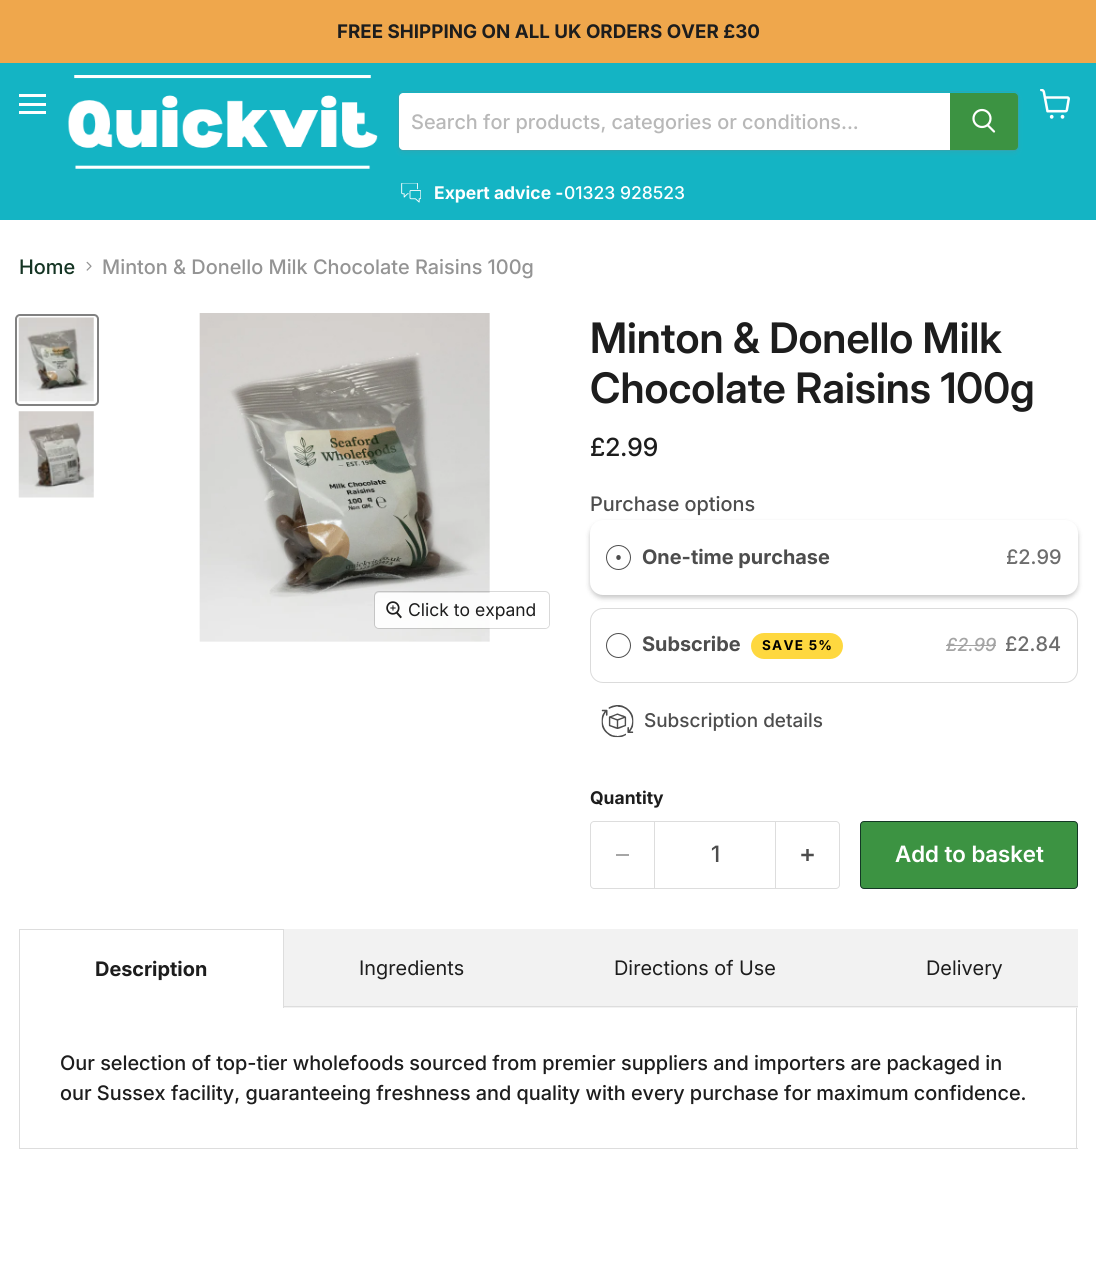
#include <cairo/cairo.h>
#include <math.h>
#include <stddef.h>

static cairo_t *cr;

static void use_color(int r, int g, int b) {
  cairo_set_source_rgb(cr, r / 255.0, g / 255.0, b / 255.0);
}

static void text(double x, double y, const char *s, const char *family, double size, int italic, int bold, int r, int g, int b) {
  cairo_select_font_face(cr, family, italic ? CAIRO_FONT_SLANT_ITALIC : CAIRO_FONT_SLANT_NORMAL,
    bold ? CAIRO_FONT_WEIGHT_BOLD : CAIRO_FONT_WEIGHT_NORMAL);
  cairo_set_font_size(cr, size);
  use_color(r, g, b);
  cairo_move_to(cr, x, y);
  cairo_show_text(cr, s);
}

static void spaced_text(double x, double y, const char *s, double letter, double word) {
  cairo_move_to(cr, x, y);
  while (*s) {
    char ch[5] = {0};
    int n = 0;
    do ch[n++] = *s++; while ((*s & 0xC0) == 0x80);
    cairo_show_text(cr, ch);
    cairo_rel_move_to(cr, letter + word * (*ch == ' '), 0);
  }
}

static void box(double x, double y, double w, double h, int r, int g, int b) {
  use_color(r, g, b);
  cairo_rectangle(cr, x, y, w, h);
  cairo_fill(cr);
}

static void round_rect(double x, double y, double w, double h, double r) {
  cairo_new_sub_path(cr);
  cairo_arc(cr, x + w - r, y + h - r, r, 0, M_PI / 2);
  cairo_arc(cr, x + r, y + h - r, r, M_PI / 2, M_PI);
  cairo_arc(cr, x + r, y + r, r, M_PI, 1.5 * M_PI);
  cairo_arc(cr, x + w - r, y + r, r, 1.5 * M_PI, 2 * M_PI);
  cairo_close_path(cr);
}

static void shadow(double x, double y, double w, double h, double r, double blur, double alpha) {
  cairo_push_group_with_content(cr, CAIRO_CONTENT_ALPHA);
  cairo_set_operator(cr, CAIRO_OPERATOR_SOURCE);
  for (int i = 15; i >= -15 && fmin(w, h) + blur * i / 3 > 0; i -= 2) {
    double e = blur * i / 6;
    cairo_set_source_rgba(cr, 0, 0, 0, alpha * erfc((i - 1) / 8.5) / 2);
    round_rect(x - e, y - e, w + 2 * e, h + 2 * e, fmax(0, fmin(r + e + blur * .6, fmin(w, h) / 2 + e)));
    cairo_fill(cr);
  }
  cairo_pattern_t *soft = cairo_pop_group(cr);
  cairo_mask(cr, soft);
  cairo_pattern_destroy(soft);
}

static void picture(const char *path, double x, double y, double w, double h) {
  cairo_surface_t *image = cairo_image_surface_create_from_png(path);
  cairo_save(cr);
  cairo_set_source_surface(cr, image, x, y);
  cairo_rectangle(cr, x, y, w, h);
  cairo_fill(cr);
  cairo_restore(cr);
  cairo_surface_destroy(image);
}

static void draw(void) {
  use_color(255, 255, 255);
  cairo_paint(cr);
  box(0, 0, 1096, 63, 239, 167, 76);
  box(0, 63, 1096, 157, 20, 180, 196);
  box(19, 94, 27, 3, 255, 255, 255);
  box(19, 103, 27, 3, 255, 255, 255);
  box(19, 111, 27, 3, 255, 255, 255);
  picture("img_01.png", 1040, 89, 30, 30);
  picture("img_02.png", 68, 75, 310, 94);
  use_color(128, 128, 128);
  shadow(398, 94, 621, 60, 5, 2, 0.11);
  round_rect(398.5, 91.5, 620, 59, 4.5);
  cairo_set_source_rgba(cr, 0.502, 0.502, 0.502, 0.2);
  cairo_set_line_width(cr, 1);
  cairo_stroke(cr);
  use_color(255, 255, 255);
  cairo_new_path(cr);
  cairo_move_to(cr, 403, 93);
  cairo_line_to(cr, 950, 93);
  cairo_line_to(cr, 950, 150);
  cairo_line_to(cr, 403, 150);
  cairo_curve_to(cr, 401, 150, 399, 148, 399, 146);
  cairo_line_to(cr, 399, 97);
  cairo_curve_to(cr, 399, 95, 401, 93, 403, 93);
  cairo_close_path(cr);
  cairo_fill(cr);
  use_color(60, 147, 66);
  cairo_new_path(cr);
  cairo_move_to(cr, 950.5, 93.5);
  cairo_line_to(cr, 1014, 93.5);
  cairo_curve_to(cr, 1016, 93.5, 1017.5, 95, 1017.5, 97);
  cairo_line_to(cr, 1017.5, 146);
  cairo_curve_to(cr, 1017.5, 148, 1016, 149.5, 1014, 149.5);
  cairo_line_to(cr, 950.5, 149.5);
  cairo_close_path(cr);
  cairo_fill_preserve(cr);
  cairo_stroke(cr);
  cairo_new_path(cr);
  cairo_move_to(cr, 994, 131.5);
  cairo_line_to(cr, 988, 125.5);
  use_color(255, 255, 255);
  cairo_set_line_width(cr, 2.2);
  cairo_set_line_cap(cr, CAIRO_LINE_CAP_ROUND);
  cairo_stroke(cr);
  cairo_arc(cr, 982, 118.5, 8.5, 0, 2 * M_PI);
  cairo_set_line_cap(cr, CAIRO_LINE_CAP_BUTT);
  cairo_stroke(cr);
  picture("img_03.png", 401, 183, 20, 20);
  picture("img_04.png", 86, 261, 6, 10);
  round_rect(16, 315, 82, 90, 4);
  use_color(129, 129, 129);
  cairo_set_line_width(cr, 2);
  cairo_stroke(cr);
  picture("img_05.png", 18, 317, 76, 85);
  picture("img_06.png", 18, 411, 76, 87);
  picture("img_07.png", 199, 313, 291, 329);
  round_rect(374.5, 591.5, 175, 37, 4.5);
  cairo_set_source_rgba(cr, 0, 0, 0, 0.15);
  cairo_set_line_width(cr, 1);
  cairo_stroke(cr);
  cairo_set_source_rgba(cr, 1, 1, 1, 0.9);
  round_rect(375, 593, 174, 35, 4);
  cairo_fill(cr);
  picture("img_08.png", 386, 601, 16, 18);
  use_color(0, 0, 0);
  shadow(590, 523, 488, 75, 13, 2.5, 0.22);
  use_color(255, 255, 255);
  round_rect(590, 520, 488, 75, 13);
  cairo_fill(cr);
  cairo_arc(cr, 618.5, 557.5, 12, 0, 2 * M_PI);
  use_color(77, 77, 77);
  cairo_stroke(cr);
  cairo_new_path(cr);
  cairo_move_to(cr, 618.5, 555);
  cairo_curve_to(cr, 615.5, 555, 615.5, 560, 618.5, 560);
  cairo_curve_to(cr, 621.5, 560, 621.5, 555, 618.5, 555);
  cairo_close_path(cr);
  cairo_fill(cr);
  round_rect(590.5, 608.5, 487, 74, 12.5);
  use_color(219, 219, 219);
  cairo_stroke(cr);
  cairo_arc(cr, 618.5, 645.5, 12, 0, 2 * M_PI);
  use_color(77, 77, 77);
  cairo_stroke(cr);
  use_color(254, 216, 63);
  round_rect(751, 633, 92, 26, 13);
  cairo_fill(cr);
  box(946, 645, 50, 1, 164, 164, 164);
  picture("img_09.png", 601, 705, 33, 33);
  use_color(221, 221, 221);
  cairo_set_fill_rule(cr, CAIRO_FILL_RULE_EVEN_ODD);
  cairo_new_path(cr);
  cairo_move_to(cr, 594, 821);
  cairo_line_to(cr, 654, 821);
  cairo_line_to(cr, 654, 889);
  cairo_line_to(cr, 594, 889);
  cairo_curve_to(cr, 592, 889, 590, 887, 590, 885);
  cairo_line_to(cr, 590, 825);
  cairo_curve_to(cr, 590, 823, 592, 821, 594, 821);
  cairo_close_path(cr);
  cairo_move_to(cr, 594, 822);
  cairo_line_to(cr, 654, 822);
  cairo_line_to(cr, 654, 888);
  cairo_line_to(cr, 594, 888);
  cairo_curve_to(cr, 592, 888, 591, 886, 591, 885);
  cairo_line_to(cr, 591, 825);
  cairo_curve_to(cr, 591, 824, 592, 822, 594, 822);
  cairo_close_path(cr);
  cairo_fill(cr);
  box(616, 854, 13, 2, 166, 166, 166);
  cairo_rectangle(cr, 654.5, 821.5, 121, 67);
  use_color(221, 221, 221);
  cairo_stroke(cr);
  cairo_new_path(cr);
  cairo_move_to(cr, 776, 821);
  cairo_line_to(cr, 836, 821);
  cairo_curve_to(cr, 838, 821, 840, 823, 840, 825);
  cairo_line_to(cr, 840, 885);
  cairo_curve_to(cr, 840, 887, 838, 889, 836, 889);
  cairo_line_to(cr, 776, 889);
  cairo_close_path(cr);
  cairo_move_to(cr, 776, 822);
  cairo_line_to(cr, 836, 822);
  cairo_curve_to(cr, 838, 822, 839, 824, 839, 825);
  cairo_line_to(cr, 839, 885);
  cairo_curve_to(cr, 839, 886, 838, 888, 836, 888);
  cairo_line_to(cr, 776, 888);
  cairo_close_path(cr);
  cairo_fill(cr);
  picture("img_10.png", 801, 849, 13, 12);
  use_color(60, 147, 66);
  round_rect(860.5, 821.5, 217, 67, 3.5);
  cairo_fill_preserve(cr);
  use_color(20, 56, 37);
  cairo_stroke(cr);
  box(19, 929, 265, 1, 221, 221, 221);
  box(283, 929, 1, 79, 221, 221, 221);
  box(19, 929, 1, 79, 221, 221, 221);
  box(284, 929, 794, 79, 242, 242, 242);
  box(284, 1006, 794, 1, 221, 221, 221);
  box(1076, 1008, 1, 141, 221, 221, 221);
  box(19, 1148, 1059, 1, 221, 221, 221);
  box(19, 1008, 1, 141, 221, 221, 221);
  text(337, 38, "FREE SHIPPING ON ALL UK ORDERS OVER £30", "Inter", 18.75, 0, 1, 29, 29, 29);
  text(411, 129, "Search for products, categories or conditions...", "Inter Medium", 20, 0, 0, 184, 184, 184);
  text(434, 199, "Expert advice -", "Inter", 17.5, 0, 1, 255, 255, 255);
  text(564, 199, "01323 928523", "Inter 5 Medium", 17.5, 0, 0, 255, 255, 255);
  text(19, 274, "Home", "Inter Medium", 20, 0, 0, 20, 52, 35);
  text(102, 274, "Minton & Donello Milk Chocolate Raisins 100g", "Inter Medium", 20, 0, 0, 148, 148, 148);
  text(408, 616, "Click to expand", "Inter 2", 17.5, 0, 0, 29, 29, 29);
  text(590, 353, "Minton & Donello Milk", "Inter SemiBold", 42, 0, 0, 29, 29, 29);
  text(590, 403, "Chocolate Raisins 100g", "Inter SemiBold", 42, 0, 0, 29, 29, 29);
  text(590, 456, "£2.99", "Inter 2 Medium", 25, 0, 0, 29, 29, 29);
  text(590, 511, "Purchase options", "Inter Medium", 20, 0, 0, 77, 77, 77);
  text(642, 564, "One-time purchase", "Inter 2", 20, 0, 1, 77, 77, 77);
  text(1006, 564, "£2.99", "Inter Medium", 20, 0, 0, 109, 109, 109);
  text(642, 651, "Subscribe", "Inter 2", 20, 0, 1, 77, 77, 77);
  cairo_select_font_face(cr, "Inter", CAIRO_FONT_SLANT_NORMAL, CAIRO_FONT_WEIGHT_BOLD);
  cairo_set_font_size(cr, 13.5);
  use_color(0, 0, 0);
  spaced_text(762, 650, "SAVE 5%", 1.25, 0);
  text(946, 651, "£2.99", "Inter Medium", 18, 1, 0, 164, 164, 164);
  text(1005, 651, "£2.84", "Inter Medium", 20, 0, 0, 109, 109, 109);
  text(644, 727, "Subscription details", "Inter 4 Medium", 19, 0, 0, 77, 77, 77);
  text(590, 804, "Quantity", "Inter", 17.5, 0, 1, 29, 29, 29);
  text(711, 862, "1", "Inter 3 Medium", 22.5, 0, 0, 77, 77, 77);
  text(895, 862, "Add to basket", "Inter 2 SemiBold", 22.5, 0, 0, 255, 255, 255);
  text(95, 976, "Description", "Inter 2", 20, 0, 1, 29, 29, 29);
  text(359, 975, "Ingredients", "Inter", 20, 0, 0, 29, 29, 29);
  text(614, 975, "Directions of Use", "Inter", 20, 0, 0, 29, 29, 29);
  text(926, 975, "Delivery", "Inter", 20, 0, 0, 29, 29, 29);
  text(60, 1070, "Our selection of top-tier wholefoods sourced from premier suppliers and importers are packaged in", "Inter Medium", 20, 0, 0, 29, 29, 29);
  text(60, 1100, "our Sussex facility, guaranteeing freshness and quality with every purchase for maximum confidence.", "Inter Medium", 20, 0, 0, 29, 29, 29);
}

int main(void) {
  cairo_surface_t *surface = cairo_image_surface_create(CAIRO_FORMAT_RGB24, 1096, 1273);
  cr = cairo_create(surface);
  cairo_font_options_t *options = cairo_font_options_create();
  cairo_font_options_set_hint_metrics(options, CAIRO_HINT_METRICS_OFF);
  cairo_font_options_set_hint_style(options, CAIRO_HINT_STYLE_NONE);
  cairo_set_font_options(cr, options);
  cairo_set_miter_limit(cr, 4);
  draw();
  cairo_surface_write_to_png(surface, "out.png");
  cairo_font_options_destroy(options);
  cairo_destroy(cr);
  cairo_surface_destroy(surface);
  return 0;
}
